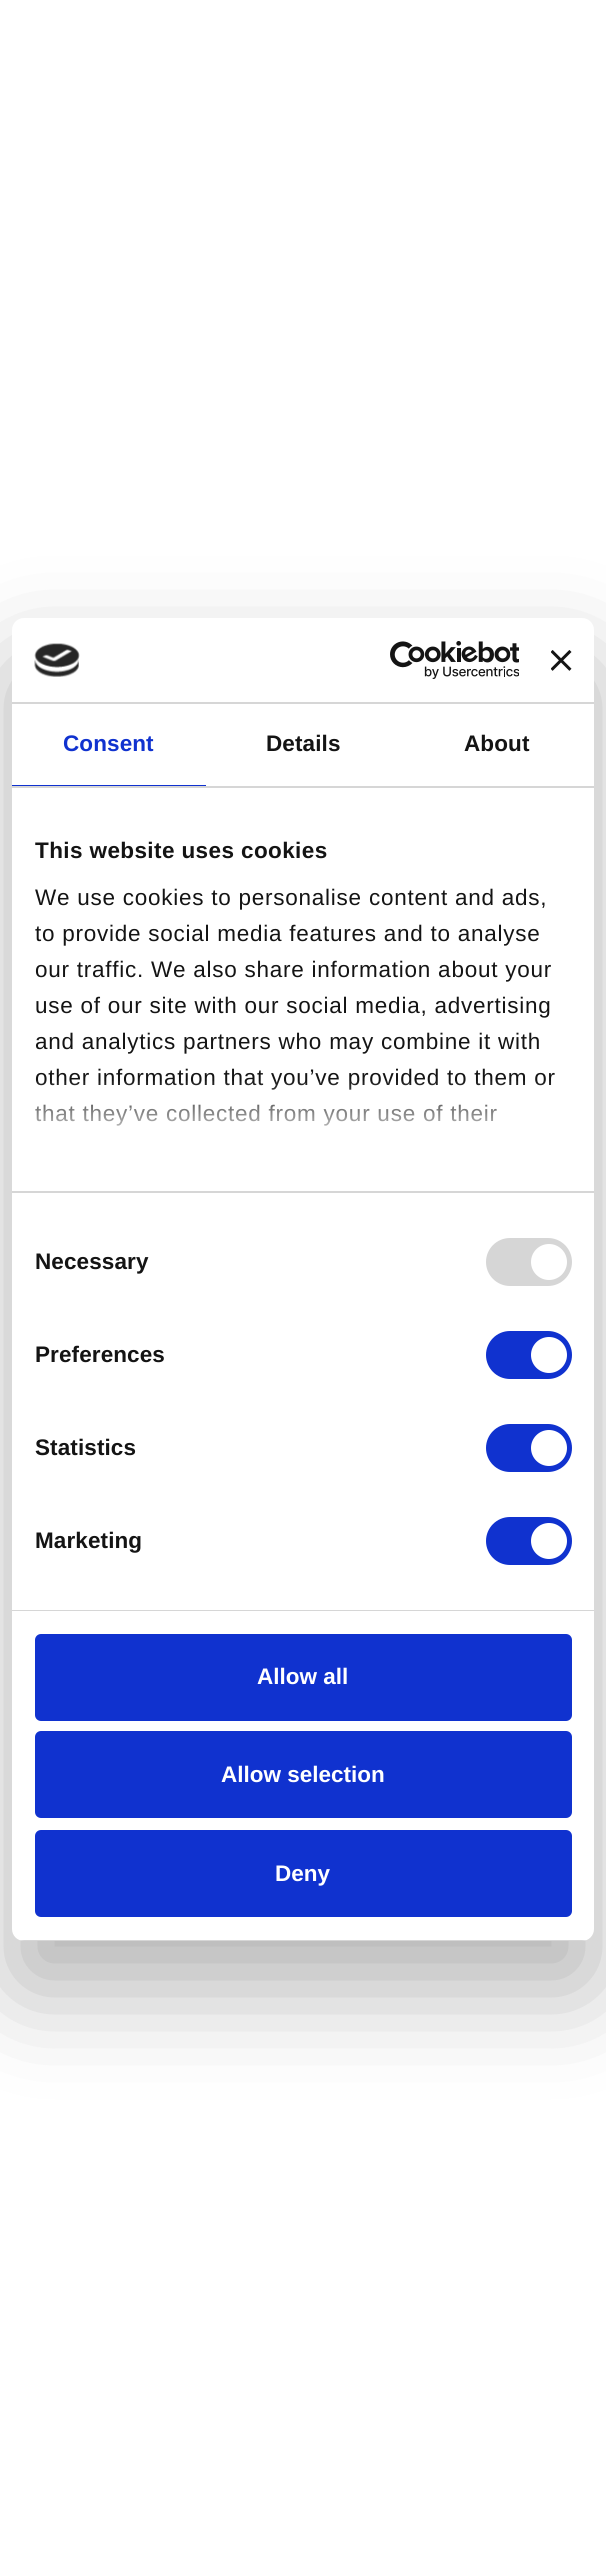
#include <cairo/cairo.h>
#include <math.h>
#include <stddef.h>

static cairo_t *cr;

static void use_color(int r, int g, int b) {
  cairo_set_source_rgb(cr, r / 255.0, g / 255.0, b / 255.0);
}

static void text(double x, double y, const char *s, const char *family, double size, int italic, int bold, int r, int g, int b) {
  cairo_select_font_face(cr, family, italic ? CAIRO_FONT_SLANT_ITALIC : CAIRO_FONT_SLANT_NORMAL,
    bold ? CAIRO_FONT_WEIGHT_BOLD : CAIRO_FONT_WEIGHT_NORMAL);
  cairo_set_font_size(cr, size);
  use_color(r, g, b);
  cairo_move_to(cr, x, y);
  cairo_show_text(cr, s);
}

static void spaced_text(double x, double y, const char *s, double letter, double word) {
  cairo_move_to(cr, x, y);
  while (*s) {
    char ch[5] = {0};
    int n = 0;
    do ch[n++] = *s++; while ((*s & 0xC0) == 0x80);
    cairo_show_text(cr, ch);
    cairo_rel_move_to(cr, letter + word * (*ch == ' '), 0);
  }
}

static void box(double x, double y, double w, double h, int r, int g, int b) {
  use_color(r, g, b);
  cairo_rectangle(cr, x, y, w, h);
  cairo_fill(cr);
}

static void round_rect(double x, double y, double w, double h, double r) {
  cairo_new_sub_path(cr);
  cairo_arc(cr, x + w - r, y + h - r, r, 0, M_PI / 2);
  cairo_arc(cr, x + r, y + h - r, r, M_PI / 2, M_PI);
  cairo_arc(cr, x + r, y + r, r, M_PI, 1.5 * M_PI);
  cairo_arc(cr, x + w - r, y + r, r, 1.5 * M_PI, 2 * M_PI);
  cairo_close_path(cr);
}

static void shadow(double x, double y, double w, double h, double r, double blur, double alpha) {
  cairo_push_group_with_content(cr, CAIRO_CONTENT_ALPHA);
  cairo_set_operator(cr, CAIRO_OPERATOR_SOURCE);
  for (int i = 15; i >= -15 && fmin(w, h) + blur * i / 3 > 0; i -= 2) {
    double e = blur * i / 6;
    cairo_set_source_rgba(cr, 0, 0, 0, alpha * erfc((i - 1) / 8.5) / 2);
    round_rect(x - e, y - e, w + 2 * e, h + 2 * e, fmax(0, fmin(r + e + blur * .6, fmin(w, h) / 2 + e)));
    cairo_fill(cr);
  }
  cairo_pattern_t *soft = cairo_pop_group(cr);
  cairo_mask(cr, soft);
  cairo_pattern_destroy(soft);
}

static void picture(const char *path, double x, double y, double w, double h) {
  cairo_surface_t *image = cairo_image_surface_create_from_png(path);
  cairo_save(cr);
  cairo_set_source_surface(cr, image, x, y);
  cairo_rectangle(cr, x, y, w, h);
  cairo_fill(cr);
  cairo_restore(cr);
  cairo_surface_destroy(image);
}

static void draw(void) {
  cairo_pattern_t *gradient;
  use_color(255, 255, 255);
  cairo_paint(cr);
  use_color(0, 0, 0);
  shadow(12, 666, 582, 1323, 12, 51, 0.3);
  use_color(255, 255, 255);
  round_rect(12, 618, 582, 1323, 12);
  cairo_fill(cr);
  box(12, 702, 582, 2, 214, 214, 214);
  picture("img_01.png", 34, 643, 46, 34);
  picture("img_02.png", 390, 641, 129, 38);
  picture("img_03.png", 551, 650, 21, 21);
  box(12, 786, 582, 2, 214, 214, 214);
  box(12, 785, 194, 1, 16, 50, 207);
  box(12, 1191, 582, 2, 214, 214, 214);
  box(12, 1610, 582, 1, 214, 214, 214);
  round_rect(486, 1238, 86, 48, 24);
  cairo_fill(cr);
  use_color(255, 255, 255);
  cairo_arc(cr, 549, 1262, 18, 0, 2 * M_PI);
  cairo_fill(cr);
  use_color(16, 50, 207);
  round_rect(486, 1331, 86, 48, 24);
  cairo_fill(cr);
  use_color(255, 255, 255);
  cairo_arc(cr, 549, 1355, 18, 0, 2 * M_PI);
  cairo_fill(cr);
  use_color(16, 50, 207);
  round_rect(486, 1424, 86, 48, 24);
  cairo_fill(cr);
  use_color(255, 255, 255);
  cairo_arc(cr, 549, 1448, 18, 0, 2 * M_PI);
  cairo_fill(cr);
  use_color(16, 50, 207);
  round_rect(486, 1517, 86, 48, 24);
  cairo_fill(cr);
  use_color(255, 255, 255);
  cairo_arc(cr, 549, 1541, 18, 0, 2 * M_PI);
  cairo_fill(cr);
  cairo_save(cr);
  round_rect(12, 618, 582, 1323, 12);
  cairo_clip(cr);
  box(12, 1940, 582, 1, 214, 214, 214);
  cairo_restore(cr);
  use_color(16, 50, 207);
  round_rect(36.5, 1635.5, 534, 84, 4.5);
  cairo_fill_preserve(cr);
  cairo_set_line_width(cr, 3);
  cairo_stroke(cr);
  round_rect(36.5, 1732.5, 534, 84, 4.5);
  cairo_fill_preserve(cr);
  cairo_stroke(cr);
  round_rect(36.5, 1831.5, 534, 84, 4.5);
  cairo_fill_preserve(cr);
  cairo_stroke(cr);
  cairo_select_font_face(cr, "Liberation Sans", CAIRO_FONT_SLANT_NORMAL, CAIRO_FONT_WEIGHT_BOLD);
  cairo_set_font_size(cr, 22.5);
  spaced_text(63, 751, "Consent", 0.1, 0);
  use_color(20, 20, 20);
  spaced_text(266, 751, "Details", 0.1, 0);
  spaced_text(464, 751, "About", 0.1, 0);
  spaced_text(35, 858, "This website uses cookies", 0.4, 0);
  cairo_select_font_face(cr, "Liberation Sans", CAIRO_FONT_SLANT_NORMAL, CAIRO_FONT_WEIGHT_NORMAL);
  spaced_text(35, 905, "We use cookies to personalise content and ads,", 0.75, 0);
  spaced_text(35, 941, "to provide social media features and to analyse", 0.75, 0);
  spaced_text(35, 977, "our traffic. We also share information about your", 0.75, 0);
  spaced_text(35, 1013, "use of our site with our social media, advertising", 0.75, 0);
  spaced_text(35, 1049, "and analytics partners who may combine it with", 0.75, 0);
  spaced_text(35, 1085, "other information that you’ve provided to them or", 0.75, 0);
  spaced_text(35, 1121, "that they’ve collected from your use of their", 0.75, 0);
  gradient = cairo_pattern_create_linear(293, 1191, 293, 1079);
  cairo_pattern_add_color_stop_rgba(gradient, 0, 1, 1, 1, 1);
  cairo_pattern_add_color_stop_rgba(gradient, 0.5, 1, 1, 1, 0.8);
  cairo_pattern_add_color_stop_rgba(gradient, 1, 1, 1, 1, 0);
  cairo_set_source(cr, gradient);
  cairo_pattern_destroy(gradient);
  cairo_rectangle(cr, 34, 1081, 517, 45);
  cairo_fill(cr);
  cairo_select_font_face(cr, "Liberation Sans", CAIRO_FONT_SLANT_NORMAL, CAIRO_FONT_WEIGHT_BOLD);
  use_color(20, 20, 20);
  spaced_text(35, 1269, "Necessary", 0.1, 0);
  spaced_text(35, 1362, "Preferences", 0.1, 0);
  spaced_text(35, 1455, "Statistics", 0.1, 0);
  spaced_text(35, 1548, "Marketing", 0.1, 0);
  text(257, 1684, "Allow all", "Liberation Sans", 22.5, 0, 1, 255, 255, 255);
  text(221, 1782, "Allow selection", "Liberation Sans", 22.5, 0, 1, 255, 255, 255);
  text(275, 1881, "Deny", "Liberation Sans", 22.5, 0, 1, 255, 255, 255);
}

int main(void) {
  cairo_surface_t *surface = cairo_image_surface_create(CAIRO_FORMAT_RGB24, 606, 2559);
  cr = cairo_create(surface);
  cairo_font_options_t *options = cairo_font_options_create();
  cairo_font_options_set_hint_metrics(options, CAIRO_HINT_METRICS_OFF);
  cairo_font_options_set_hint_style(options, CAIRO_HINT_STYLE_NONE);
  cairo_set_font_options(cr, options);
  cairo_set_miter_limit(cr, 4);
  draw();
  cairo_surface_write_to_png(surface, "out.png");
  cairo_font_options_destroy(options);
  cairo_destroy(cr);
  cairo_surface_destroy(surface);
  return 0;
}
